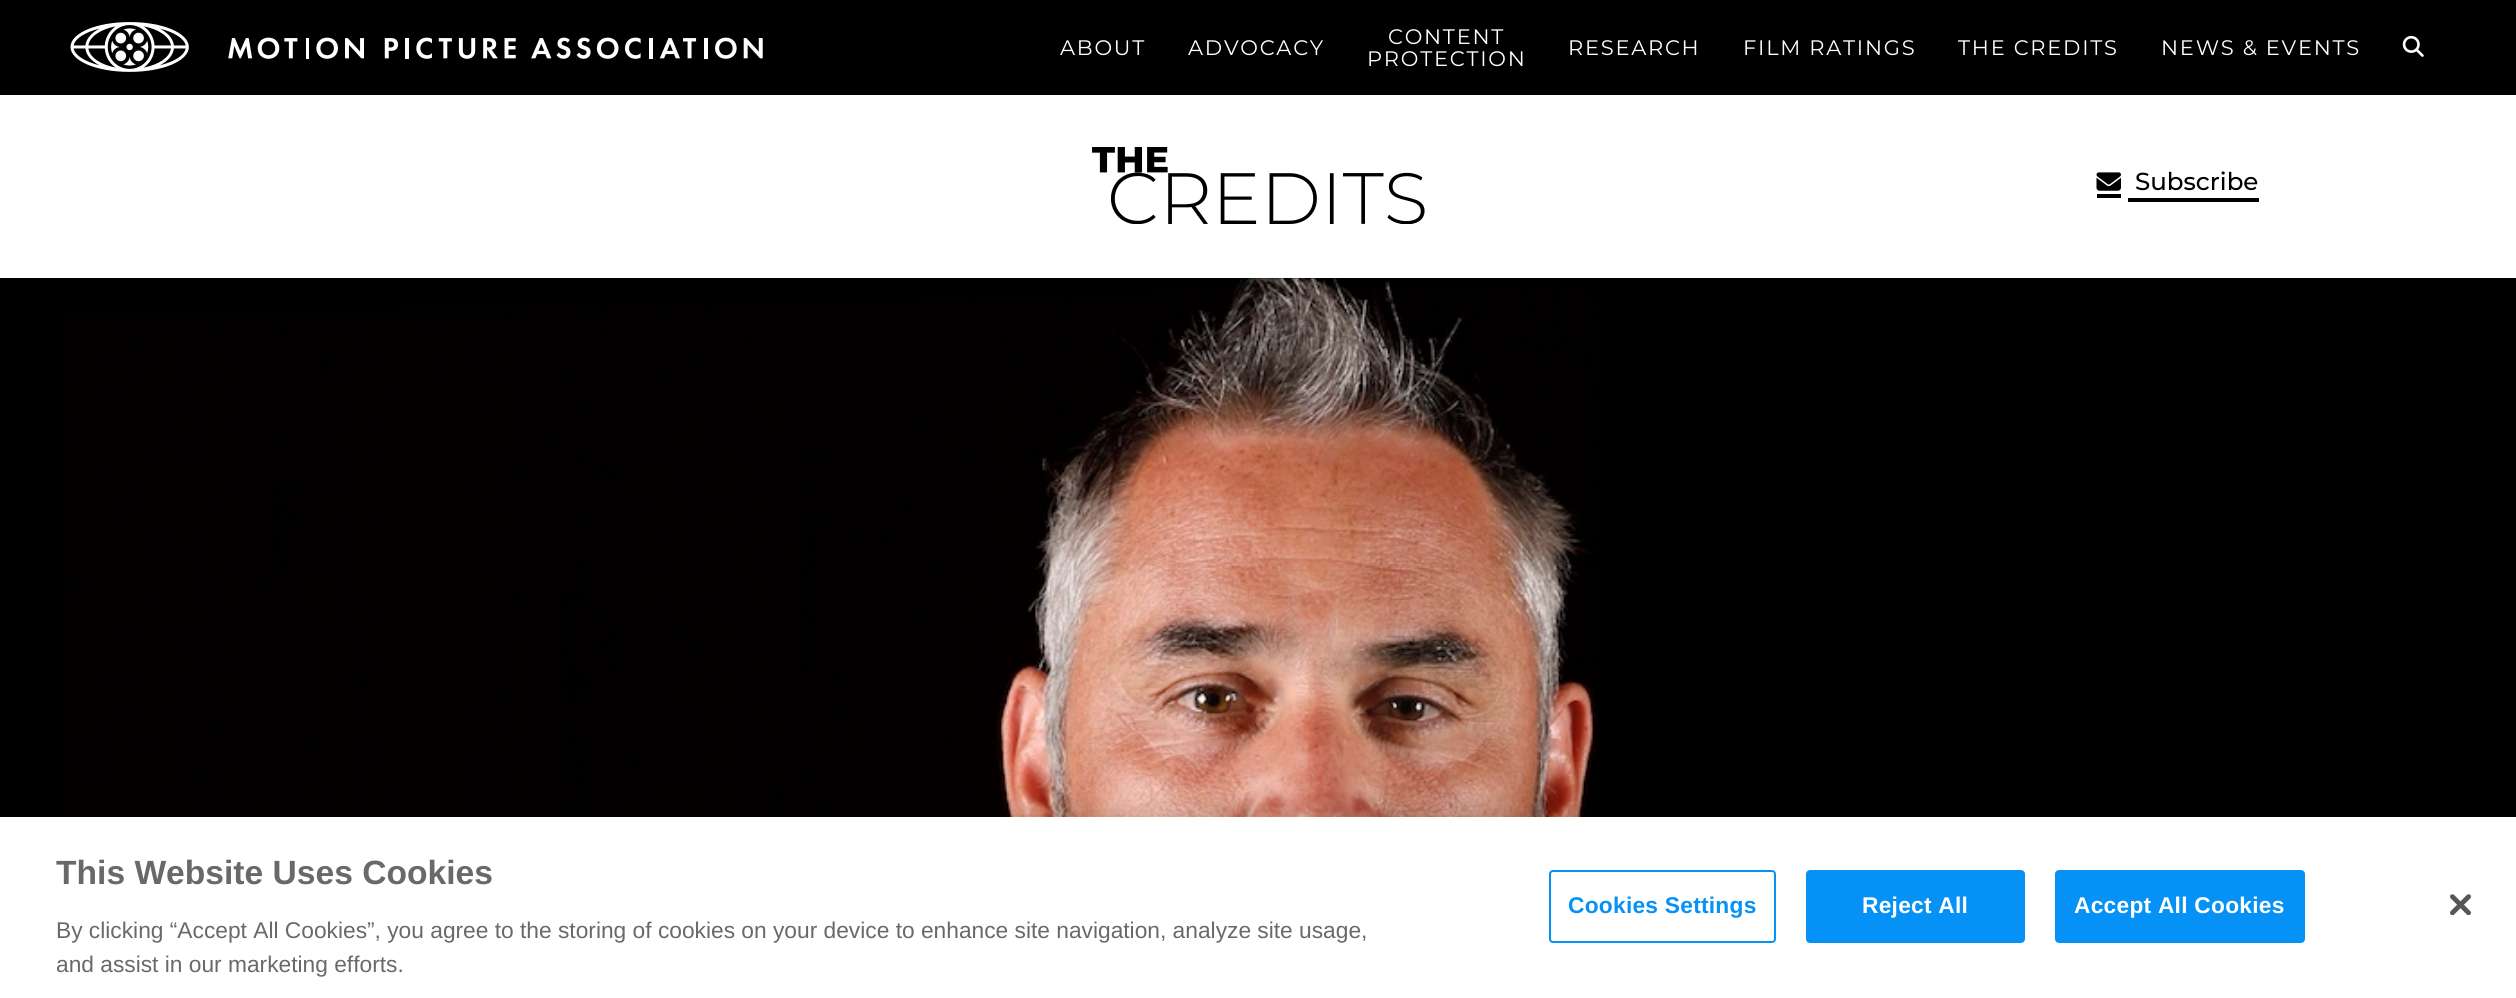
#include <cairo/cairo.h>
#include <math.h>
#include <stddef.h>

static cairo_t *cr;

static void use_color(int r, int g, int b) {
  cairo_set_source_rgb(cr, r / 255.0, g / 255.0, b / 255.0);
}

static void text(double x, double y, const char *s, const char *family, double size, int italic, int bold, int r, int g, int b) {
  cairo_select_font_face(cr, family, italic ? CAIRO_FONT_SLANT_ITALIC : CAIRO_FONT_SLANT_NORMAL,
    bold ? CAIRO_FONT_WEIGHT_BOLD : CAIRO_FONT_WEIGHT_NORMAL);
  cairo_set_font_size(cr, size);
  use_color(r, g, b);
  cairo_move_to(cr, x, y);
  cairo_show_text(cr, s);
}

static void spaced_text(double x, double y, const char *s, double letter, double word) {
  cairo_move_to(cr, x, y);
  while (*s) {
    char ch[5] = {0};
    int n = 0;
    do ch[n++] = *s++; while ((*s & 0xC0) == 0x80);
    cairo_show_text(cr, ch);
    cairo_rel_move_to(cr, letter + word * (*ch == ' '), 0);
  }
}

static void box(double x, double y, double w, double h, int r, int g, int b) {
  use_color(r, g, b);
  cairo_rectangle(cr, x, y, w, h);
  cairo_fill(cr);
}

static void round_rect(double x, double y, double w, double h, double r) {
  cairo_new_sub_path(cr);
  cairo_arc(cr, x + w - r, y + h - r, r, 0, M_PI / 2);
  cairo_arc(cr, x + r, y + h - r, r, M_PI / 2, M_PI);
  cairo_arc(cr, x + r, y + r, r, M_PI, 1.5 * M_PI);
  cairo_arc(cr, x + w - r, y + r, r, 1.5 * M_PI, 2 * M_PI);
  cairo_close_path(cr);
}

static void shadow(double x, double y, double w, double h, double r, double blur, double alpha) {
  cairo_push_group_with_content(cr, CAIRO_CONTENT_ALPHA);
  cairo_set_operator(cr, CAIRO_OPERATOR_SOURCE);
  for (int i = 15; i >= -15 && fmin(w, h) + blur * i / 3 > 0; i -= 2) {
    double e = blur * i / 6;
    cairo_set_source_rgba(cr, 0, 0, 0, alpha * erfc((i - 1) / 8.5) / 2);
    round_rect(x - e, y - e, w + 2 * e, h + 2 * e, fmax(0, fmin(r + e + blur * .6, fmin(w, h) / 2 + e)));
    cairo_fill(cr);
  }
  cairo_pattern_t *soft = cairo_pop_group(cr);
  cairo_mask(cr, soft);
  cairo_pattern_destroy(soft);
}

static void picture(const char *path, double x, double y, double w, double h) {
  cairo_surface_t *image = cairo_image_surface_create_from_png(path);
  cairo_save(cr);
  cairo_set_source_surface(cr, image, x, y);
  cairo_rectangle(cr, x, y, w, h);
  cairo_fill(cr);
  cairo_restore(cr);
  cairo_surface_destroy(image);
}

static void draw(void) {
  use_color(255, 255, 255);
  cairo_paint(cr);
  box(0, 0, 2516, 95, 0, 0, 0);
  picture("img_01.png", 70, 22, 693, 50);
  picture("img_02.png", 2402, 35, 22, 22);
  picture("img_03.png", 1092, 147, 333, 77);
  box(2097, 194, 24, 4, 0, 0, 0);
  box(2128, 198, 131, 4, 0, 0, 0);
  picture("img_04.png", 2096, 172, 25, 19);
  box(0, 278, 2516, 539, 0, 0, 0);
  picture("img_05.png", 66, 278, 1531, 539);
  use_color(0, 0, 0);
  shadow(0, 817, 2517, 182, 0, 16, 0.2);
  box(0, 817, 2516, 181, 255, 255, 255);
  round_rect(1550, 871, 225, 71, 3);
  use_color(5, 145, 245);
  cairo_stroke(cr);
  round_rect(1807, 871, 217, 71, 3);
  cairo_fill_preserve(cr);
  cairo_stroke(cr);
  round_rect(2056, 871, 248, 71, 3);
  cairo_fill_preserve(cr);
  cairo_stroke(cr);
  picture("img_06.png", 2450, 894, 21, 21);
  cairo_select_font_face(cr, "Montserrat", CAIRO_FONT_SLANT_NORMAL, CAIRO_FONT_WEIGHT_NORMAL);
  cairo_set_font_size(cr, 21);
  use_color(255, 255, 255);
  spaced_text(1060, 55, "ABOUT", 1.75, 0);
  spaced_text(1188, 55, "ADVOCACY", 1.75, 0);
  spaced_text(1388, 44, "CONTENT", 1.75, 0);
  spaced_text(1367, 66, "PROTECTION", 1.75, 0);
  spaced_text(1568, 55, "RESEARCH", 1.75, 0);
  spaced_text(1743, 55, "FILM RATINGS", 1.75, 0);
  spaced_text(1958, 55, "THE CREDITS", 1.75, 0);
  spaced_text(2161, 55, "NEWS & EVENTS", 1.75, 0);
  text(2135, 190, "Subscribe", "Montserrat Medium", 24.5, 0, 0, 0, 0, 0);
  text(56, 884, "This Website Uses Cookies", "Liberation Sans", 33.6, 0, 1, 105, 105, 105);
  text(56, 938, "By clicking “Accept All Cookies”, you agree to the storing of cookies on your device to enhance site navigation, analyze site usage,", "Liberation Sans", 22.75, 0, 0, 105, 105, 105);
  text(56, 972, "and assist in our marketing efforts.", "Liberation Sans", 22.75, 0, 0, 105, 105, 105);
  cairo_select_font_face(cr, "Liberation Sans", CAIRO_FONT_SLANT_NORMAL, CAIRO_FONT_WEIGHT_BOLD);
  use_color(5, 145, 245);
  spaced_text(1568, 913, "Cookies Settings", 0.25, 0);
  use_color(255, 255, 255);
  spaced_text(1862, 913, "Reject All", 0.25, 0);
  spaced_text(2074, 913, "Accept All Cookies", 0.25, 0);
}

int main(void) {
  cairo_surface_t *surface = cairo_image_surface_create(CAIRO_FORMAT_RGB24, 2516, 998);
  cr = cairo_create(surface);
  cairo_font_options_t *options = cairo_font_options_create();
  cairo_font_options_set_hint_metrics(options, CAIRO_HINT_METRICS_OFF);
  cairo_font_options_set_hint_style(options, CAIRO_HINT_STYLE_NONE);
  cairo_set_font_options(cr, options);
  cairo_set_miter_limit(cr, 4);
  draw();
  cairo_surface_write_to_png(surface, "out.png");
  cairo_font_options_destroy(options);
  cairo_destroy(cr);
  cairo_surface_destroy(surface);
  return 0;
}
